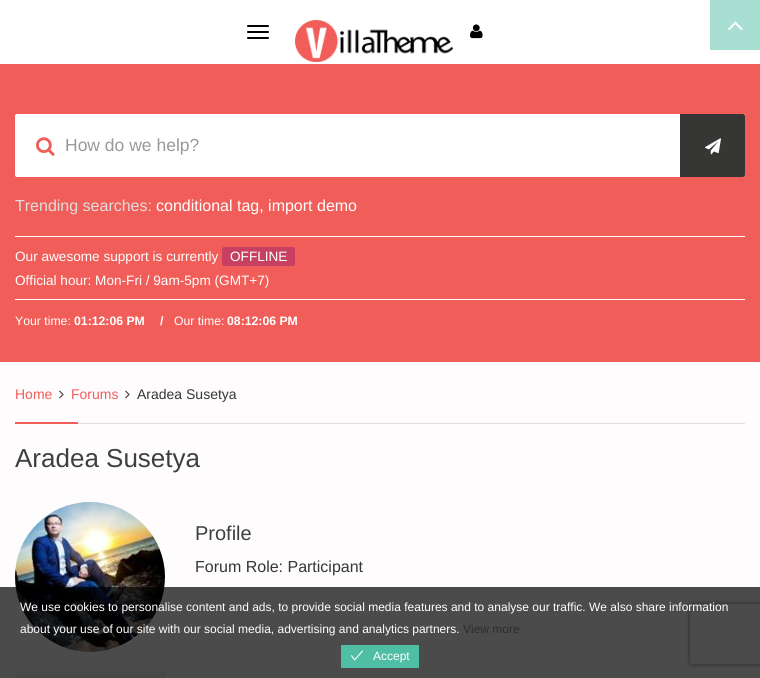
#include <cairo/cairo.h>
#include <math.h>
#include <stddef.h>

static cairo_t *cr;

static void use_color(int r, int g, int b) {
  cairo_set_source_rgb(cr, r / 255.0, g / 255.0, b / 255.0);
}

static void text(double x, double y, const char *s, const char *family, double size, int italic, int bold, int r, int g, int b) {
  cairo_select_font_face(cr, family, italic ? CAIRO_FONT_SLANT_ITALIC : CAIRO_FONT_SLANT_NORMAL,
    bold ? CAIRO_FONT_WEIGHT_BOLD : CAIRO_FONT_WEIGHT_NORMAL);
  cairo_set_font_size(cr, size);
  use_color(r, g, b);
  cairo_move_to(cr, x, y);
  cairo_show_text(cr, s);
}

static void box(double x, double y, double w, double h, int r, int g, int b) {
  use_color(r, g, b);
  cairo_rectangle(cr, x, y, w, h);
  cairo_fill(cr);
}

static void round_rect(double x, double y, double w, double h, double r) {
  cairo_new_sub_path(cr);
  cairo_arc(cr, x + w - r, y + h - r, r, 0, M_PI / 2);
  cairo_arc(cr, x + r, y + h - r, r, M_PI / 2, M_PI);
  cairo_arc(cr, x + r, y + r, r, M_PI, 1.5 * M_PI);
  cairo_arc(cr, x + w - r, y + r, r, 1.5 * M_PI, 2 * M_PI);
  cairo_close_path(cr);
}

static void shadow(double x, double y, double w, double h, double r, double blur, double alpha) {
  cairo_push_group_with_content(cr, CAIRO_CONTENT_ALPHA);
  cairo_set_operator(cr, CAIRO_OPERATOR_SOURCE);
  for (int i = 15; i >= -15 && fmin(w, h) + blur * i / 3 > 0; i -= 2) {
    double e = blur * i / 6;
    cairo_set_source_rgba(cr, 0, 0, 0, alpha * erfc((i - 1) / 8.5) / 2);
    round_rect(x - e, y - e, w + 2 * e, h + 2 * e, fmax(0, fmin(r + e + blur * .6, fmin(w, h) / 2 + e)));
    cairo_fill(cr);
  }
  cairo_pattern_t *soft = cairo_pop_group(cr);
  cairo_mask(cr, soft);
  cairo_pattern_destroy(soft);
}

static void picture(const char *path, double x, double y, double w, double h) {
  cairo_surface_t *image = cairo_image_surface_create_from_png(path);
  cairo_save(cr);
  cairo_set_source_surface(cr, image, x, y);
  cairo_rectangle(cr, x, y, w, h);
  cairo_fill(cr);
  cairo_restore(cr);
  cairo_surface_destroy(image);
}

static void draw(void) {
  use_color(254, 252, 253);
  cairo_paint(cr);
  box(0, 0, 760, 64, 255, 255, 255);
  box(710, 0, 50, 50, 168, 223, 210);
  picture("img_01.png", 728, 21, 15, 9);
  use_color(0, 0, 0);
  round_rect(247, 25, 22, 2, 1);
  cairo_fill(cr);
  round_rect(247, 31, 22, 2, 1);
  cairo_fill(cr);
  round_rect(247, 37, 22, 2, 1);
  cairo_fill(cr);
  picture("img_02.png", 295, 20, 158, 42);
  picture("img_03.png", 470, 24, 13, 15);
  box(0, 64, 760, 298, 241, 93, 88);
  use_color(255, 255, 255);
  round_rect(15, 114, 730, 63, 2);
  cairo_fill(cr);
  picture("img_04.png", 36, 137, 19, 19);
  use_color(54, 54, 53);
  cairo_new_path(cr);
  cairo_move_to(cr, 680, 114);
  cairo_line_to(cr, 743, 114);
  cairo_curve_to(cr, 744, 114, 745, 115, 745, 116);
  cairo_line_to(cr, 745, 175);
  cairo_curve_to(cr, 745, 176, 744, 177, 743, 177);
  cairo_line_to(cr, 680, 177);
  cairo_close_path(cr);
  cairo_fill(cr);
  picture("img_05.png", 705, 138, 16, 17);
  box(15, 236, 730, 1, 255, 255, 255);
  use_color(199, 64, 97);
  round_rect(222, 247, 73, 19, 2);
  cairo_fill(cr);
  box(15, 299, 730, 1, 255, 255, 255);
  box(78, 423, 667, 1, 221, 221, 221);
  picture("img_06.png", 59, 390, 5, 9);
  picture("img_06.png", 125, 390, 5, 9);
  box(15, 422, 63, 2, 241, 93, 88);
  picture("img_07.png", 15, 502, 150, 150);
  box(15, 672, 150, 6, 240, 239, 239);
  cairo_save(cr);
  cairo_set_fill_rule(cr, CAIRO_FILL_RULE_EVEN_ODD);
  cairo_new_path(cr);
  cairo_move_to(cr, 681, 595);
  cairo_line_to(cr, 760, 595);
  cairo_line_to(cr, 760, 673);
  cairo_line_to(cr, 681, 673);
  cairo_close_path(cr);
  cairo_move_to(cr, 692, 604);
  cairo_line_to(cr, 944, 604);
  cairo_curve_to(cr, 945, 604, 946, 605, 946, 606);
  cairo_line_to(cr, 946, 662);
  cairo_curve_to(cr, 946, 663, 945, 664, 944, 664);
  cairo_line_to(cr, 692, 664);
  cairo_curve_to(cr, 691, 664, 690, 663, 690, 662);
  cairo_line_to(cr, 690, 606);
  cairo_curve_to(cr, 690, 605, 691, 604, 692, 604);
  cairo_close_path(cr);
  cairo_clip(cr);
  use_color(128, 128, 128);
  shadow(690, 604, 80, 60, 2, 2.5, 1);
  cairo_restore(cr);
  cairo_set_source_rgba(cr, 0, 0, 0, 0.7);
  cairo_rectangle(cr, 0, 587, 760, 91);
  cairo_fill(cr);
  box(341, 645, 78, 23, 80, 190, 164);
  picture("img_08.png", 351, 650, 12, 11);
  text(65, 151, "How do we help?", "Liberation Sans", 17.5, 0, 0, 153, 153, 153);
  text(15, 211, "Trending searches:", "Liberation Sans", 16, 0, 0, 223, 222, 222);
  text(156, 211, "conditional tag, import demo", "Liberation Sans", 16, 0, 0, 255, 255, 255);
  text(15, 261, "Our awesome support is currently", "Liberation Sans", 13.6, 0, 0, 255, 255, 255);
  text(230, 261, "OFFLINE", "Liberation Sans", 13.6, 0, 0, 255, 255, 255);
  text(15, 285, "Official hour: Mon-Fri / 9am-5pm (GMT+7)", "Liberation Sans", 13.6, 0, 0, 255, 255, 255);
  text(15, 325, "Your time:", "Liberation Sans", 12.25, 0, 0, 255, 255, 255);
  text(74, 325, "01:12:06 PM", "Liberation Sans", 12.25, 0, 1, 255, 255, 255);
  text(160, 325, "/", "Liberation Sans", 12.25, 0, 1, 255, 255, 255);
  text(174, 325, "Our time:", "Liberation Sans", 12.25, 0, 0, 255, 255, 255);
  text(227, 325, "08:12:06 PM", "Liberation Sans", 12.25, 0, 1, 255, 255, 255);
  text(15, 399, "Home", "Liberation Sans", 14, 0, 0, 241, 93, 88);
  text(71, 399, "Forums", "Liberation Sans", 14, 0, 0, 241, 93, 88);
  text(137, 399, "Aradea Susetya", "Liberation Sans", 14, 0, 0, 54, 54, 53);
  text(15, 467, "Aradea Susetya", "Liberation Sans", 26, 0, 0, 63, 63, 63);
  text(195, 540, "Profile", "Liberation Sans", 20, 0, 0, 63, 63, 63);
  text(195, 572, "Forum Role: Participant", "Liberation Sans", 16, 0, 0, 54, 54, 53);
  text(20, 611, "We use cookies to personalise content and ads, to provide social media features and to analyse our traffic. We also share information", "Liberation Sans", 12, 0, 0, 255, 255, 255);
  text(20, 633, "about your use of our site with our social media, advertising and analytics partners.", "Liberation Sans", 12, 0, 0, 255, 255, 255);
  text(463, 633, "View more", "Liberation Sans", 12, 0, 0, 45, 42, 42);
  text(373, 660, "Accept", "Liberation Sans", 12, 0, 0, 255, 255, 255);
}

int main(void) {
  cairo_surface_t *surface = cairo_image_surface_create(CAIRO_FORMAT_RGB24, 760, 678);
  cr = cairo_create(surface);
  cairo_font_options_t *options = cairo_font_options_create();
  cairo_font_options_set_hint_metrics(options, CAIRO_HINT_METRICS_OFF);
  cairo_font_options_set_hint_style(options, CAIRO_HINT_STYLE_NONE);
  cairo_set_font_options(cr, options);
  cairo_set_miter_limit(cr, 4);
  draw();
  cairo_surface_write_to_png(surface, "out.png");
  cairo_font_options_destroy(options);
  cairo_destroy(cr);
  cairo_surface_destroy(surface);
  return 0;
}
